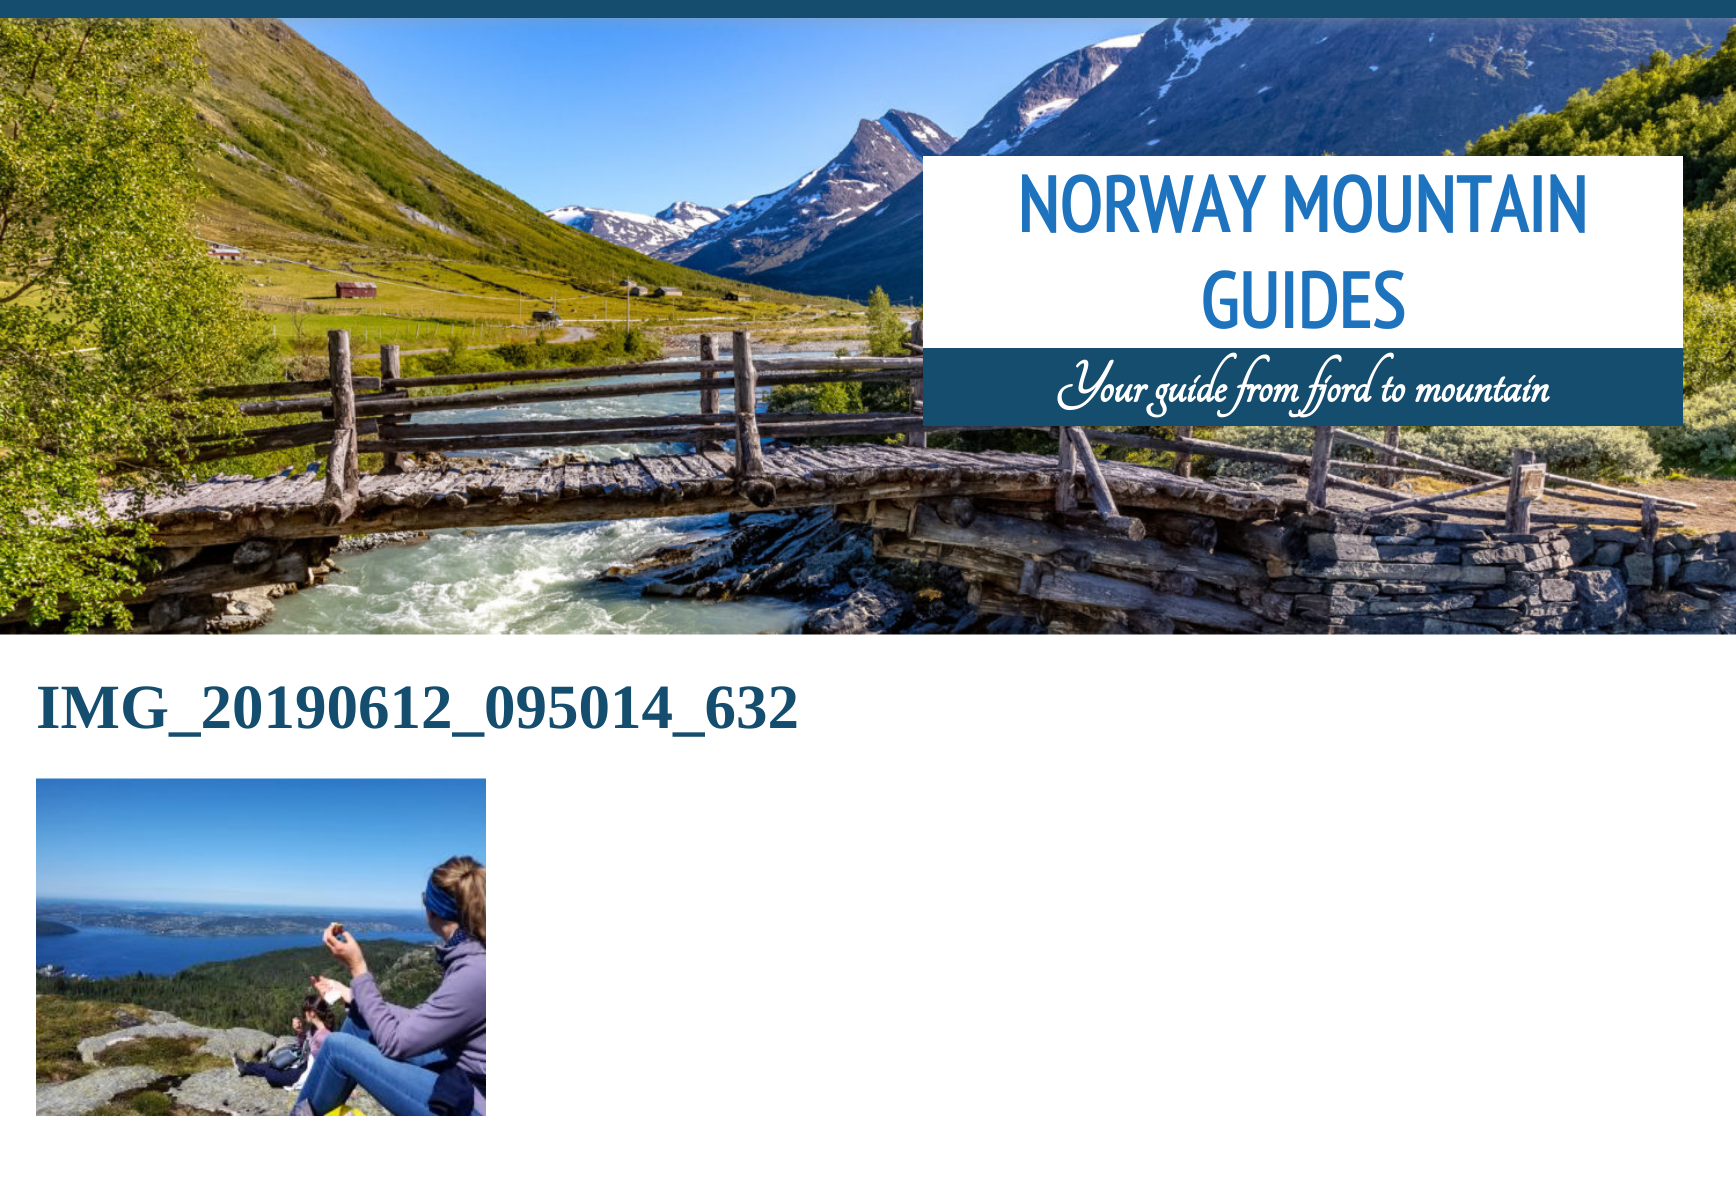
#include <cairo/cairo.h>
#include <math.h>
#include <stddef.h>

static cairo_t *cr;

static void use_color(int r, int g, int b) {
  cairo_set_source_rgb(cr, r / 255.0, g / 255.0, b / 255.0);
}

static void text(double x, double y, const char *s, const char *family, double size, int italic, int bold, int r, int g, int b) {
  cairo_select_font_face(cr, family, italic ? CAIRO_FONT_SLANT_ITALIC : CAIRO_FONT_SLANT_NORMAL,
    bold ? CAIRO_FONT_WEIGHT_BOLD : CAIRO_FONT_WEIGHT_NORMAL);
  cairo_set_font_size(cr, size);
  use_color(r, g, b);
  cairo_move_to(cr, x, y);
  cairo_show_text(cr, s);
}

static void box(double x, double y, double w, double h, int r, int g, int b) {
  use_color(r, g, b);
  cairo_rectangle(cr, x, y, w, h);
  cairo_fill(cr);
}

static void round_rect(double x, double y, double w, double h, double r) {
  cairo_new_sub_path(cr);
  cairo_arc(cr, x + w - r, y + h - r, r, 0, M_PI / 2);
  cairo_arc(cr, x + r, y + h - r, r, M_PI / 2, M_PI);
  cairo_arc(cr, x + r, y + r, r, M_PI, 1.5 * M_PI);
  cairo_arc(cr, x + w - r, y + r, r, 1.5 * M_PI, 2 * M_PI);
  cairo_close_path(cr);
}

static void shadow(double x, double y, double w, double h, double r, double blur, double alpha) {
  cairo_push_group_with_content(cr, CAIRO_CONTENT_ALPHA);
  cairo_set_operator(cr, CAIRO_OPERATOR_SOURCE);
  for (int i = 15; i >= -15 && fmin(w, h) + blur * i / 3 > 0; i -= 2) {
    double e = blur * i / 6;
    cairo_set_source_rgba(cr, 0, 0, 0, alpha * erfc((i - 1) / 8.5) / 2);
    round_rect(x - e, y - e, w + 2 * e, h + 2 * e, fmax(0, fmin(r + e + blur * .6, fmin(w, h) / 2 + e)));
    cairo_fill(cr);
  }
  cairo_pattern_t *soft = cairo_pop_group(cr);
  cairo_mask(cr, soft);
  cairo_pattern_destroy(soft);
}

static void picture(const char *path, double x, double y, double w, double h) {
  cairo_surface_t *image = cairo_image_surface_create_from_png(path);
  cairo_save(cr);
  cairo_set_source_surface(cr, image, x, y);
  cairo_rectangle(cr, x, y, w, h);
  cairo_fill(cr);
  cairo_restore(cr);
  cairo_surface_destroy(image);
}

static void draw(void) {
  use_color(255, 255, 255);
  cairo_paint(cr);
  picture("img_01.png", 0, 18, 1736, 617);
  use_color(165, 165, 165);
  shadow(8, -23, 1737, 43, 0, 7.5, 0.5);
  box(0, 0, 1736, 18, 20, 77, 109);
  box(923, 156, 760, 192, 255, 255, 255);
  box(923, 348, 760, 78, 20, 77, 109);
  picture("img_02.png", 36, 778, 450, 338);
  text(1017, 232, "NORWAY MOUNTAIN", "PT Sans Narrow", 78, 0, 1, 30, 115, 190);
  text(1200, 328, "GUIDES", "PT Sans Narrow", 78, 0, 1, 30, 115, 190);
  text(1057, 402, "Your guide from fjord to mountain", "Tangerine", 63, 0, 1, 255, 255, 255);
  text(36, 728, "IMG_20190612_095014_632", "Liberation Serif", 63, 0, 1, 20, 77, 109);
}

int main(void) {
  cairo_surface_t *surface = cairo_image_surface_create(CAIRO_FORMAT_RGB24, 1736, 1199);
  cr = cairo_create(surface);
  cairo_font_options_t *options = cairo_font_options_create();
  cairo_font_options_set_hint_metrics(options, CAIRO_HINT_METRICS_OFF);
  cairo_font_options_set_hint_style(options, CAIRO_HINT_STYLE_NONE);
  cairo_set_font_options(cr, options);
  cairo_set_miter_limit(cr, 4);
  draw();
  cairo_surface_write_to_png(surface, "out.png");
  cairo_font_options_destroy(options);
  cairo_destroy(cr);
  cairo_surface_destroy(surface);
  return 0;
}
